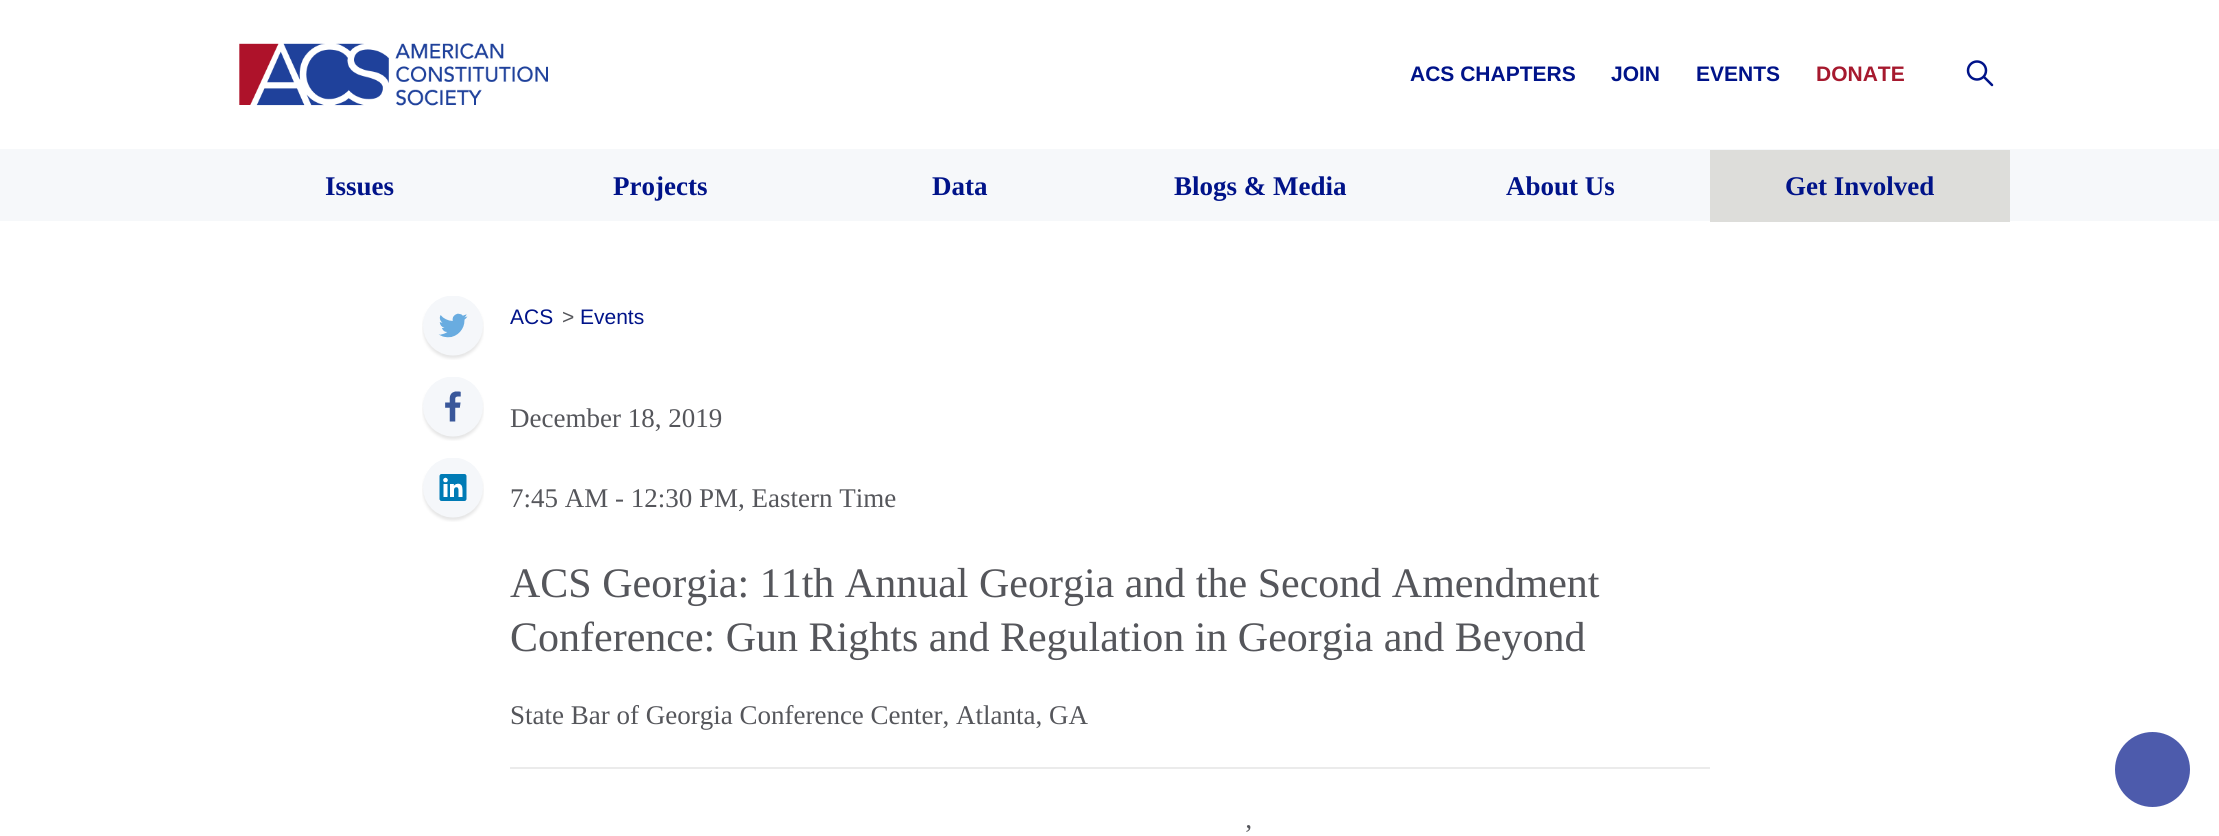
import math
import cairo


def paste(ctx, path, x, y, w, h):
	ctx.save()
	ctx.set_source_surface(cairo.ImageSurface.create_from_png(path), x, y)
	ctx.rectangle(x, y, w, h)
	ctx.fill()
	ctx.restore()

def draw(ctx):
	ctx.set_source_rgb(1, 1, 1)
	ctx.paint()
	paste(ctx, 'media/1.png', 239, 43, 309, 63)
	ctx.select_font_face('Liberation Sans', cairo.FONT_SLANT_NORMAL, cairo.FONT_WEIGHT_BOLD)
	ctx.set_font_size(21)
	ctx.set_source_rgb(0, 0.078, 0.537)
	for x, y, s in [
		(1410, 81, 'ACS CHAPTERS'),
		(1611, 81, 'JOIN'),
		(1696, 81, 'EVENTS'),
	]:
		ctx.move_to(x, y)
		ctx.show_text(s)
	ctx.set_source_rgb(0.651, 0.098, 0.18)
	ctx.move_to(1816, 81)
	ctx.show_text('DONATE')
	ctx.new_path()
	ctx.arc(1977, 70.5, 9, 0, 2 * math.pi)
	ctx.set_source_rgb(0, 0.078, 0.537)
	ctx.set_line_width(2.5)
	ctx.stroke()
	ctx.new_path()
	ctx.move_to(1984.5, 77.5)
	ctx.line_to(1992, 85)
	ctx.set_line_cap(cairo.LINE_CAP_ROUND)
	ctx.stroke()
	ctx.set_source_rgb(0.961, 0.969, 0.98)
	ctx.rectangle(0, 149, 2219, 72)
	ctx.fill()
	ctx.select_font_face('Liberation Serif', cairo.FONT_SLANT_NORMAL, cairo.FONT_WEIGHT_BOLD)
	ctx.set_font_size(27)
	ctx.set_source_rgb(0, 0.078, 0.537)
	for x, y, s in [
		(325, 195, 'Issues'),
		(613, 195, 'Projects'),
		(932, 195, 'Data'),
		(1174, 195, 'Blogs & Media'),
		(1506, 195, 'About Us'),
	]:
		ctx.move_to(x, y)
		ctx.show_text(s)
	ctx.set_source_rgb(0.867, 0.867, 0.855)
	ctx.rectangle(1710, 150, 300, 72)
	ctx.fill()
	ctx.set_source_rgb(0, 0.078, 0.537)
	ctx.move_to(1785, 195)
	ctx.show_text('Get Involved')
	paste(ctx, 'media/2.png', 422, 296, 62, 64)
	paste(ctx, 'media/3.png', 422, 377, 62, 64)
	paste(ctx, 'media/4.png', 422, 458, 62, 64)
	ctx.select_font_face('Liberation Sans')
	ctx.set_font_size(21)
	ctx.move_to(510, 324)
	ctx.show_text('ACS')
	ctx.set_source_rgb(0.333, 0.337, 0.357)
	ctx.move_to(562, 324)
	ctx.show_text('>')
	ctx.set_source_rgb(0, 0.078, 0.537)
	ctx.move_to(580, 324)
	ctx.show_text('Events')
	ctx.select_font_face('Liberation Serif')
	ctx.set_font_size(27)
	ctx.set_source_rgb(0.333, 0.337, 0.357)
	ctx.move_to(510, 427)
	ctx.show_text('December 18, 2019')
	ctx.move_to(510, 507)
	ctx.show_text('7:45 AM - 12:30 PM, Eastern Time')
	ctx.set_font_size(42)
	ctx.move_to(510, 597)
	ctx.show_text('ACS Georgia: 11th Annual Georgia and the Second Amendment')
	ctx.move_to(510, 651)
	ctx.show_text('Conference: Gun Rights and Regulation in Georgia and Beyond')
	ctx.set_font_size(27)
	ctx.move_to(510, 724)
	ctx.show_text('State Bar of Georgia Conference Center, Atlanta, GA')
	ctx.set_source_rgb(0.918, 0.918, 0.918)
	ctx.rectangle(510, 767, 1200, 2)
	ctx.fill()
	ctx.set_source_rgb(0.333, 0.337, 0.357)
	ctx.move_to(1244, 843)
	ctx.show_text('’')
	ctx.set_source_rgb(0.302, 0.357, 0.675)
	ctx.new_path()
	ctx.arc(2152.5, 769.5, 37.5, 0, 2 * math.pi)
	ctx.fill()


surface = cairo.ImageSurface(cairo.FORMAT_RGB24, 2219, 836)
ctx = cairo.Context(surface)
options = cairo.FontOptions()
options.set_hint_metrics(cairo.HINT_METRICS_OFF)
options.set_hint_style(cairo.HINT_STYLE_NONE)
ctx.set_font_options(options)
ctx.set_miter_limit(4)
draw(ctx)
surface.write_to_png('image.png')
